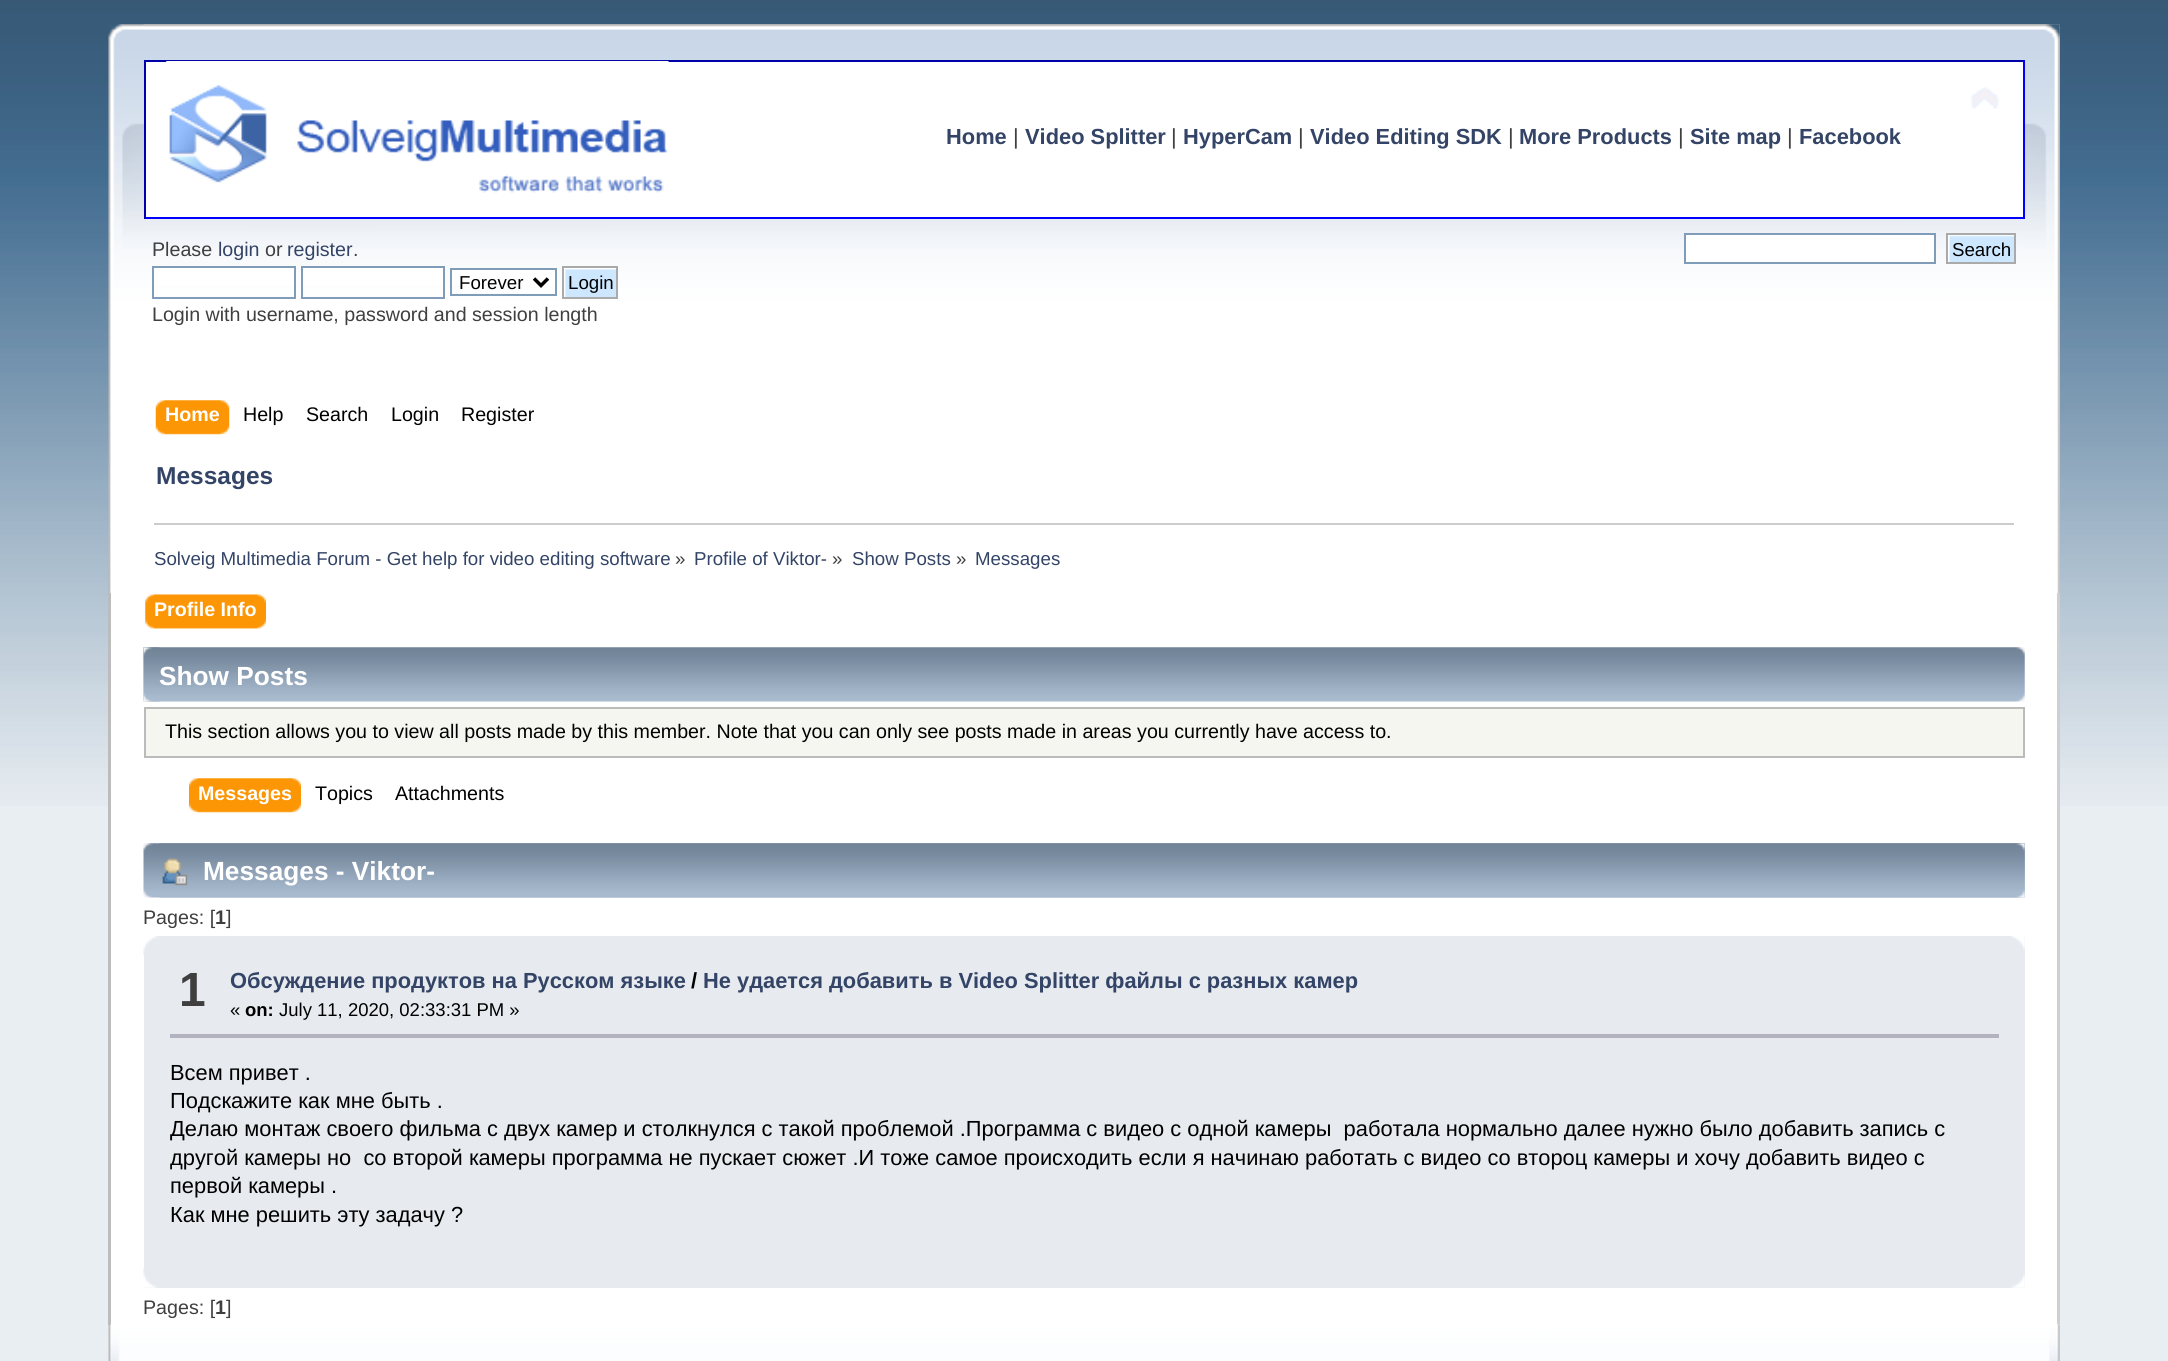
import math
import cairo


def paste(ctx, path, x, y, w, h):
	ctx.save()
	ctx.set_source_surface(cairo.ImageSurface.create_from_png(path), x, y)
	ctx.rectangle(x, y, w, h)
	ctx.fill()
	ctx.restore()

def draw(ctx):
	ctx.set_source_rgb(0.914, 0.933, 0.949)
	ctx.paint()
	paste(ctx, 'media/1.png', 0, 0, 2168, 806)
	paste(ctx, 'media/2.png', 108, 24, 1952, 569)
	paste(ctx, 'media/3.png', 143, 24, 1917, 569)
	ctx.set_source_rgb(1, 1, 1)
	ctx.rectangle(146, 62, 1877, 155)
	ctx.fill()
	ctx.set_source_rgb(0, 0, 0.667)
	ctx.rectangle(144, 60, 1881, 2)
	ctx.fill()
	ctx.set_source_rgb(0, 0, 1)
	ctx.rectangle(2023, 60, 2, 159)
	ctx.rectangle(144, 217, 1881, 2)
	ctx.fill()
	ctx.set_source_rgb(0, 0, 0.667)
	ctx.rectangle(144, 60, 2, 159)
	ctx.fill()
	paste(ctx, 'media/4.png', 166, 61, 503, 132)
	paste(ctx, 'media/5.png', 1970, 87, 29, 22)
	ctx.select_font_face('Liberation Sans', cairo.FONT_SLANT_NORMAL, cairo.FONT_WEIGHT_BOLD)
	ctx.set_font_size(21.85)
	ctx.set_source_rgb(0.2, 0.267, 0.4)
	ctx.move_to(946, 144)
	ctx.show_text('Home')
	ctx.select_font_face('Liberation Sans')
	ctx.set_source_rgb(0.247, 0.247, 0.247)
	ctx.move_to(1013, 144)
	ctx.show_text('|')
	ctx.select_font_face('Liberation Sans', cairo.FONT_SLANT_NORMAL, cairo.FONT_WEIGHT_BOLD)
	ctx.set_source_rgb(0.2, 0.267, 0.4)
	ctx.move_to(1025, 144)
	ctx.show_text('Video Splitter')
	ctx.select_font_face('Liberation Sans')
	ctx.set_source_rgb(0.247, 0.247, 0.247)
	ctx.move_to(1171, 144)
	ctx.show_text('|')
	ctx.select_font_face('Liberation Sans', cairo.FONT_SLANT_NORMAL, cairo.FONT_WEIGHT_BOLD)
	ctx.set_source_rgb(0.2, 0.267, 0.4)
	ctx.move_to(1183, 144)
	ctx.show_text('HyperCam')
	ctx.select_font_face('Liberation Sans')
	ctx.set_source_rgb(0.247, 0.247, 0.247)
	ctx.move_to(1298, 144)
	ctx.show_text('|')
	ctx.select_font_face('Liberation Sans', cairo.FONT_SLANT_NORMAL, cairo.FONT_WEIGHT_BOLD)
	ctx.set_source_rgb(0.2, 0.267, 0.4)
	ctx.move_to(1310, 144)
	ctx.show_text('Video Editing SDK')
	ctx.select_font_face('Liberation Sans')
	ctx.set_source_rgb(0.247, 0.247, 0.247)
	ctx.move_to(1508, 144)
	ctx.show_text('|')
	ctx.select_font_face('Liberation Sans', cairo.FONT_SLANT_NORMAL, cairo.FONT_WEIGHT_BOLD)
	ctx.set_source_rgb(0.2, 0.267, 0.4)
	ctx.move_to(1519, 144)
	ctx.show_text('More Products')
	ctx.select_font_face('Liberation Sans')
	ctx.set_source_rgb(0.247, 0.247, 0.247)
	ctx.move_to(1678, 144)
	ctx.show_text('|')
	ctx.select_font_face('Liberation Sans', cairo.FONT_SLANT_NORMAL, cairo.FONT_WEIGHT_BOLD)
	ctx.set_source_rgb(0.2, 0.267, 0.4)
	ctx.move_to(1690, 144)
	ctx.show_text('Site map')
	ctx.select_font_face('Liberation Sans')
	ctx.set_source_rgb(0.247, 0.247, 0.247)
	ctx.move_to(1787, 144)
	ctx.show_text('|')
	ctx.select_font_face('Liberation Sans', cairo.FONT_SLANT_NORMAL, cairo.FONT_WEIGHT_BOLD)
	ctx.set_source_rgb(0.2, 0.267, 0.4)
	ctx.move_to(1799, 144)
	ctx.show_text('Facebook')
	ctx.select_font_face('Liberation Sans')
	ctx.set_font_size(19.65)
	ctx.set_source_rgb(0.247, 0.247, 0.247)
	ctx.move_to(152, 256)
	ctx.show_text('Please')
	ctx.set_source_rgb(0.2, 0.267, 0.4)
	ctx.move_to(218, 256)
	ctx.show_text('login')
	ctx.set_source_rgb(0.247, 0.247, 0.247)
	ctx.move_to(265, 256)
	ctx.show_text('or')
	ctx.set_source_rgb(0.2, 0.267, 0.4)
	ctx.move_to(287, 256)
	ctx.show_text('register')
	ctx.set_source_rgb(0.247, 0.247, 0.247)
	ctx.move_to(353, 256)
	ctx.show_text('.')
	ctx.set_source_rgb(1, 1, 1)
	ctx.rectangle(154, 268, 140, 18)
	ctx.fill()
	ctx.rectangle(153, 267, 142, 31)
	ctx.set_source_rgb(0.498, 0.616, 0.725)
	ctx.stroke()
	ctx.set_source_rgb(1, 1, 1)
	ctx.rectangle(303, 268, 140, 18)
	ctx.fill()
	ctx.rectangle(302, 267, 142, 31)
	ctx.set_source_rgb(0.498, 0.616, 0.725)
	ctx.stroke()
	ctx.set_source_rgb(1, 1, 1)
	ctx.rectangle(452, 270, 103, 16)
	ctx.fill()
	ctx.rectangle(451, 269, 105, 26)
	ctx.set_source_rgb(0.498, 0.616, 0.725)
	ctx.stroke()
	ctx.new_path()
	ctx.move_to(534, 278.5)
	ctx.line_to(541, 285.5)
	ctx.line_to(548, 278.5)
	ctx.set_source_rgb(0, 0, 0)
	ctx.set_line_width(3.5)
	ctx.stroke()
	ctx.set_font_size(18.7)
	ctx.move_to(459, 289)
	ctx.show_text('Forever')
	paste(ctx, 'media/6.png', 564, 268, 52, 29)
	ctx.rectangle(563, 267, 54, 31)
	ctx.set_source_rgb(0.667, 0.667, 0.667)
	ctx.set_line_width(2)
	ctx.stroke()
	ctx.set_source_rgb(0, 0, 0)
	ctx.move_to(568, 289)
	ctx.show_text('Login')
	ctx.set_font_size(19.65)
	ctx.set_source_rgb(0.247, 0.247, 0.247)
	ctx.move_to(152, 321)
	ctx.show_text('Login with username, password and session length')
	ctx.set_source_rgb(1, 1, 1)
	ctx.rectangle(1685, 234, 250, 29)
	ctx.fill_preserve()
	ctx.set_source_rgb(0.498, 0.616, 0.725)
	ctx.stroke()
	paste(ctx, 'media/7.png', 1948, 235, 66, 27)
	ctx.rectangle(1947, 234, 68, 29)
	ctx.set_source_rgb(0.667, 0.667, 0.667)
	ctx.stroke()
	ctx.set_font_size(18.7)
	ctx.set_source_rgb(0, 0, 0)
	ctx.move_to(1952, 256)
	ctx.show_text('Search')
	paste(ctx, 'media/8.png', 164, 400, 66, 35)
	paste(ctx, 'media/9.png', 155, 400, 66, 35)
	ctx.select_font_face('Liberation Sans', cairo.FONT_SLANT_NORMAL, cairo.FONT_WEIGHT_BOLD)
	ctx.set_font_size(19.65)
	ctx.set_source_rgb(1, 1, 1)
	ctx.move_to(165, 421)
	ctx.show_text('Home')
	ctx.select_font_face('Liberation Sans')
	ctx.set_source_rgb(0, 0, 0)
	for x, y, s in [
		(243, 421, 'Help'),
		(306, 421, 'Search'),
		(391, 421, 'Login'),
		(461, 421, 'Register'),
	]:
		ctx.move_to(x, y)
		ctx.show_text(s)
	ctx.select_font_face('Liberation Sans', cairo.FONT_SLANT_NORMAL, cairo.FONT_WEIGHT_BOLD)
	ctx.set_font_size(24.5)
	ctx.set_source_rgb(0.2, 0.267, 0.4)
	ctx.move_to(156, 484)
	ctx.show_text('Messages')
	ctx.set_source_rgb(0.8, 0.8, 0.8)
	ctx.rectangle(154, 523, 1860, 2)
	ctx.fill()
	ctx.select_font_face('Liberation Sans')
	ctx.set_font_size(18.7)
	ctx.set_source_rgb(0.2, 0.267, 0.4)
	ctx.move_to(154, 565)
	ctx.show_text('Solveig Multimedia Forum - Get help for video editing software')
	ctx.set_source_rgb(0.247, 0.247, 0.247)
	ctx.move_to(675, 565)
	ctx.show_text('»')
	ctx.set_source_rgb(0.2, 0.267, 0.4)
	ctx.move_to(694, 565)
	ctx.show_text('Profile of Viktor-')
	ctx.set_source_rgb(0.247, 0.247, 0.247)
	ctx.move_to(832, 565)
	ctx.show_text('»')
	ctx.set_source_rgb(0.2, 0.267, 0.4)
	ctx.move_to(852, 565)
	ctx.show_text('Show Posts')
	ctx.set_source_rgb(0.247, 0.247, 0.247)
	ctx.move_to(956, 565)
	ctx.show_text('»')
	ctx.set_source_rgb(0.2, 0.267, 0.4)
	ctx.move_to(975, 565)
	ctx.show_text('Messages')
	ctx.set_source_rgb(1, 1, 1)
	ctx.rectangle(111, 593, 1946, 732)
	ctx.fill()
	ctx.set_source_rgb(0.737, 0.737, 0.737)
	ctx.rectangle(108, 593, 3, 732)
	ctx.fill()
	ctx.set_source_rgb(0.812, 0.812, 0.812)
	ctx.rectangle(2057, 593, 3, 732)
	ctx.fill()
	paste(ctx, 'media/10.png', 154, 594, 112, 35)
	paste(ctx, 'media/11.png', 145, 594, 113, 35)
	ctx.select_font_face('Liberation Sans', cairo.FONT_SLANT_NORMAL, cairo.FONT_WEIGHT_BOLD)
	ctx.set_font_size(19.65)
	ctx.set_source_rgb(1, 1, 1)
	ctx.move_to(154, 616)
	ctx.show_text('Profile Info')
	paste(ctx, 'media/12.png', 143, 647, 1882, 55)
	paste(ctx, 'media/13.png', 143, 647, 17, 55)
	ctx.set_font_size(26.25)
	ctx.move_to(159, 685)
	ctx.show_text('Show Posts')
	ctx.set_source_rgb(0.961, 0.961, 0.941)
	ctx.rectangle(145, 708, 1879, 49)
	ctx.fill_preserve()
	ctx.set_source_rgb(0.733, 0.733, 0.733)
	ctx.stroke()
	ctx.select_font_face('Liberation Sans')
	ctx.set_font_size(19.65)
	ctx.set_source_rgb(0, 0, 0)
	ctx.move_to(165, 738)
	ctx.show_text('This section allows you to view all posts made by this member. Note that you can only see posts made in areas you currently have access to.')
	paste(ctx, 'media/14.png', 197, 778, 104, 35)
	paste(ctx, 'media/15.png', 189, 778, 104, 35)
	ctx.select_font_face('Liberation Sans', cairo.FONT_SLANT_NORMAL, cairo.FONT_WEIGHT_BOLD)
	ctx.set_source_rgb(1, 1, 1)
	ctx.move_to(198, 800)
	ctx.show_text('Messages')
	ctx.select_font_face('Liberation Sans')
	ctx.set_source_rgb(0, 0, 0)
	ctx.move_to(315, 800)
	ctx.show_text('Topics')
	ctx.move_to(395, 800)
	ctx.show_text('Attachments')
	paste(ctx, 'media/16.png', 143, 843, 1882, 55)
	paste(ctx, 'media/17.png', 159, 843, 1866, 55)
	paste(ctx, 'media/18.png', 162, 858, 26, 28)
	ctx.select_font_face('Liberation Sans', cairo.FONT_SLANT_NORMAL, cairo.FONT_WEIGHT_BOLD)
	ctx.set_font_size(26.25)
	ctx.set_source_rgb(1, 1, 1)
	ctx.move_to(203, 880)
	ctx.show_text('Messages - Viktor-')
	ctx.select_font_face('Liberation Sans')
	ctx.set_font_size(19.65)
	ctx.set_source_rgb(0.247, 0.247, 0.247)
	ctx.move_to(143, 924)
	ctx.show_text('Pages: [')
	ctx.select_font_face('Liberation Sans', cairo.FONT_SLANT_NORMAL, cairo.FONT_WEIGHT_BOLD)
	ctx.move_to(215, 924)
	ctx.show_text('1')
	ctx.select_font_face('Liberation Sans')
	ctx.move_to(226, 924)
	ctx.show_text(']')
	ctx.set_source_rgb(0.906, 0.918, 0.937)
	ctx.rectangle(144, 936, 1881, 352)
	ctx.fill()
	paste(ctx, 'media/19.png', 143, 936, 15, 19)
	paste(ctx, 'media/20.png', 2010, 936, 15, 14)
	ctx.select_font_face('Liberation Sans', cairo.FONT_SLANT_NORMAL, cairo.FONT_WEIGHT_BOLD)
	ctx.set_font_size(48)
	ctx.set_source_rgb(0.247, 0.247, 0.247)
	ctx.move_to(179, 1006)
	ctx.show_text('1')
	ctx.set_font_size(21.85)
	ctx.set_source_rgb(0.2, 0.267, 0.4)
	ctx.move_to(230, 988)
	ctx.show_text('Обсуждение продуктов на Русском языке')
	ctx.set_source_rgb(0, 0, 0)
	ctx.move_to(691, 988)
	ctx.show_text('/')
	ctx.set_source_rgb(0.2, 0.267, 0.4)
	ctx.move_to(703, 988)
	ctx.show_text('Не удается добавить в Video Splitter файлы с разных камер')
	ctx.select_font_face('Liberation Sans')
	ctx.set_font_size(18.5)
	ctx.set_source_rgb(0, 0, 0)
	ctx.move_to(230, 1016)
	ctx.show_text('«')
	ctx.select_font_face('Liberation Sans', cairo.FONT_SLANT_NORMAL, cairo.FONT_WEIGHT_BOLD)
	ctx.move_to(245, 1016)
	ctx.show_text('on:')
	ctx.select_font_face('Liberation Sans')
	ctx.move_to(279, 1016)
	ctx.show_text('July 11, 2020, 02:33:31 PM »')
	ctx.set_source_rgb(0.702, 0.702, 0.749)
	ctx.rectangle(170, 1034, 1829, 4)
	ctx.fill()
	ctx.set_font_size(21.85)
	ctx.set_source_rgb(0, 0, 0)
	for x, y, s in [
		(170, 1080, 'Всем привет .'),
		(170, 1108, 'Подскажите как мне быть .'),
		(170, 1136, 'Делаю монтаж своего фильма с двух камер и столкнулся с такой проблемой .Программа с видео с одной камеры  работала нормально далее нужно было добавить запись с'),
		(170, 1165, 'другой камеры но  со второй камеры программа не пускает сюжет .И тоже самое происходить если я начинаю работать с видео со второц камеры и хочу добавить видео с'),
		(170, 1193, 'первой камеры .'),
		(170, 1222, 'Как мне решить эту задачу ?'),
	]:
		ctx.move_to(x, y)
		ctx.show_text(s)
	paste(ctx, 'media/21.png', 143, 1268, 14, 20)
	paste(ctx, 'media/22.png', 2011, 1274, 14, 14)
	ctx.set_font_size(19.65)
	ctx.set_source_rgb(0.247, 0.247, 0.247)
	ctx.move_to(143, 1314)
	ctx.show_text('Pages: [')
	ctx.select_font_face('Liberation Sans', cairo.FONT_SLANT_NORMAL, cairo.FONT_WEIGHT_BOLD)
	ctx.move_to(215, 1314)
	ctx.show_text('1')
	ctx.select_font_face('Liberation Sans')
	ctx.move_to(226, 1314)
	ctx.show_text(']')
	paste(ctx, 'media/23.png', 108, 1324, 1952, 37)
	paste(ctx, 'media/24.png', 2049, 1324, 11, 37)


surface = cairo.ImageSurface(cairo.FORMAT_RGB24, 2168, 1361)
ctx = cairo.Context(surface)
options = cairo.FontOptions()
options.set_hint_metrics(cairo.HINT_METRICS_OFF)
options.set_hint_style(cairo.HINT_STYLE_NONE)
ctx.set_font_options(options)
ctx.set_miter_limit(4)
draw(ctx)
surface.write_to_png('image.png')
